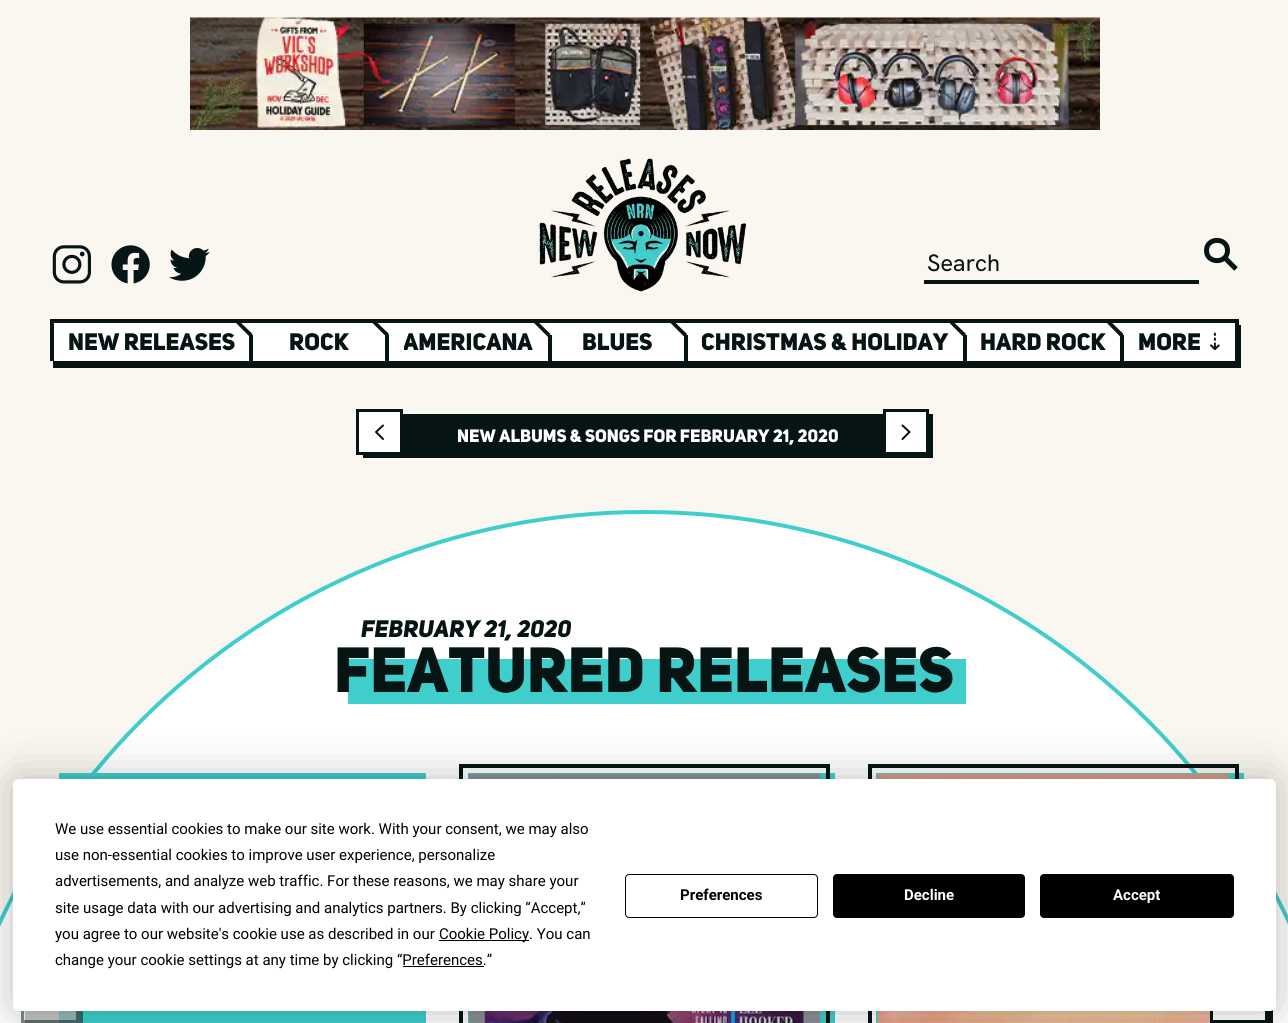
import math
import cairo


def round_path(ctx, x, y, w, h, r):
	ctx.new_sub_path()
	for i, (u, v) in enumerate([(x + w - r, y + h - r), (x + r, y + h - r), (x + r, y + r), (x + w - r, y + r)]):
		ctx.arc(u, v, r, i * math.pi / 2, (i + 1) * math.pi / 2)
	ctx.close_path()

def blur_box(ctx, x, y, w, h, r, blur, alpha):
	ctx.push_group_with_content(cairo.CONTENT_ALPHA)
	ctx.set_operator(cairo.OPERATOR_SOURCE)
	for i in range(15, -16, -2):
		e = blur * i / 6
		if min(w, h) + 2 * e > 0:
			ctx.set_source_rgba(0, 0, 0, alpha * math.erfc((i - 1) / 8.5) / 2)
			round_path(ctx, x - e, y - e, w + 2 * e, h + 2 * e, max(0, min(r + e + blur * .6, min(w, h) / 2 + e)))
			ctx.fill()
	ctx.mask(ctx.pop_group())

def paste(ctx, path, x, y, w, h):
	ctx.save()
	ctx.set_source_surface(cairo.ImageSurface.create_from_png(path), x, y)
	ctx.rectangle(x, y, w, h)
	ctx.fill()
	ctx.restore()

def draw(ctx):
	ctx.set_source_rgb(0.973, 0.965, 0.937)
	ctx.paint()
	paste(ctx, 'media/1.png', 190, 17, 910, 113)
	paste(ctx, 'media/2.png', 52, 245, 39, 39)
	paste(ctx, 'media/3.png', 111, 245, 39, 39)
	paste(ctx, 'media/4.png', 169, 248, 41, 33)
	paste(ctx, 'media/5.png', 538, 158, 209, 134)
	ctx.set_source_rgb(0.024, 0.082, 0.082)
	ctx.rectangle(924, 280, 275, 4)
	ctx.fill()
	ctx.select_font_face('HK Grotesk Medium')
	ctx.set_font_size(23.6)
	ctx.move_to(927, 271)
	ctx.show_text('Search')
	ctx.new_path()
	ctx.move_to(1224.5, 257.5)
	ctx.line_to(1236, 269)
	ctx.move_to(1206.5, 250.5)
	ctx.curve_to(1206.5, 237, 1227.5, 237, 1227.5, 250.5)
	ctx.curve_to(1227.5, 264, 1206.5, 264, 1206.5, 250.5)
	ctx.close_path()
	ctx.set_line_width(5)
	ctx.stroke()
	ctx.rectangle(53, 325, 1188, 43)
	ctx.fill()
	ctx.set_source_rgb(1, 1, 1)
	ctx.rectangle(54, 323, 195, 38)
	ctx.fill()
	ctx.set_source_rgb(0.024, 0.082, 0.082)
	ctx.rectangle(50, 319, 1189, 4)
	ctx.rectangle(50, 319, 4, 42)
	ctx.rectangle(249, 319, 4, 6)
	ctx.fill()
	ctx.set_source_rgb(1, 1, 1)
	ctx.rectangle(249, 323, 4, 12)
	ctx.fill()
	ctx.set_source_rgb(0.024, 0.082, 0.082)
	ctx.new_path()
	ctx.move_to(235, 322)
	ctx.line_to(237.5, 319.5)
	ctx.line_to(252.5, 334)
	ctx.line_to(250, 337)
	ctx.close_path()
	ctx.fill()
	ctx.select_font_face('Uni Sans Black')
	ctx.move_to(68, 350)
	ctx.show_text('New Releases')
	ctx.set_source_rgb(1, 1, 1)
	ctx.rectangle(253, 323, 132, 38)
	ctx.fill()
	ctx.set_source_rgb(0.024, 0.082, 0.082)
	ctx.rectangle(385, 319, 4, 6)
	ctx.fill()
	ctx.set_source_rgb(1, 1, 1)
	ctx.rectangle(385, 323, 4, 12)
	ctx.fill()
	ctx.set_source_rgb(0.024, 0.082, 0.082)
	ctx.new_path()
	ctx.move_to(371.5, 322)
	ctx.line_to(374, 319.5)
	ctx.line_to(389, 334)
	ctx.line_to(386.5, 337)
	ctx.close_path()
	ctx.fill()
	ctx.move_to(289, 350)
	ctx.show_text('Rock')
	ctx.set_source_rgb(1, 1, 1)
	ctx.rectangle(389, 323, 159, 38)
	ctx.fill()
	ctx.set_source_rgb(0.024, 0.082, 0.082)
	ctx.rectangle(548, 319, 4, 6)
	ctx.fill()
	ctx.set_source_rgb(1, 1, 1)
	ctx.rectangle(548, 323, 4, 12)
	ctx.fill()
	ctx.set_source_rgb(0.024, 0.082, 0.082)
	ctx.new_path()
	ctx.move_to(533, 322)
	ctx.line_to(535.5, 319.5)
	ctx.line_to(550.5, 334)
	ctx.line_to(548, 337)
	ctx.close_path()
	ctx.fill()
	ctx.save()
	ctx.rectangle(404, 324, 129, 36)
	ctx.clip()
	ctx.move_to(403, 350)
	ctx.show_text('Americana')
	ctx.restore()
	ctx.set_source_rgb(1, 1, 1)
	ctx.rectangle(552, 323, 132, 38)
	ctx.fill()
	ctx.set_source_rgb(0.024, 0.082, 0.082)
	ctx.rectangle(684, 319, 4, 6)
	ctx.fill()
	ctx.set_source_rgb(1, 1, 1)
	ctx.rectangle(684, 323, 4, 12)
	ctx.fill()
	ctx.set_source_rgb(0.024, 0.082, 0.082)
	ctx.new_path()
	ctx.move_to(669.5, 322)
	ctx.line_to(672, 319.5)
	ctx.line_to(687, 334)
	ctx.line_to(684.5, 337)
	ctx.close_path()
	ctx.fill()
	ctx.move_to(582, 350)
	ctx.show_text('Blues')
	ctx.set_source_rgb(1, 1, 1)
	ctx.rectangle(688, 323, 275, 38)
	ctx.fill()
	ctx.set_source_rgb(0.024, 0.082, 0.082)
	ctx.rectangle(963, 319, 4, 6)
	ctx.fill()
	ctx.set_source_rgb(1, 1, 1)
	ctx.rectangle(963, 323, 4, 12)
	ctx.fill()
	ctx.set_source_rgb(0.024, 0.082, 0.082)
	ctx.new_path()
	ctx.move_to(948.5, 322)
	ctx.line_to(951, 319.5)
	ctx.line_to(966, 334)
	ctx.line_to(963.5, 337)
	ctx.close_path()
	ctx.fill()
	ctx.move_to(701, 350)
	ctx.show_text('Christmas & Holiday')
	ctx.set_source_rgb(1, 1, 1)
	ctx.rectangle(967, 323, 153, 38)
	ctx.fill()
	ctx.set_source_rgb(0.024, 0.082, 0.082)
	ctx.rectangle(1120, 319, 4, 6)
	ctx.fill()
	ctx.set_source_rgb(1, 1, 1)
	ctx.rectangle(1120, 323, 4, 12)
	ctx.fill()
	ctx.set_source_rgb(0.024, 0.082, 0.082)
	ctx.new_path()
	ctx.move_to(1106, 322)
	ctx.line_to(1108.5, 319.5)
	ctx.line_to(1123.5, 334)
	ctx.line_to(1120.5, 337)
	ctx.close_path()
	ctx.fill()
	ctx.move_to(980, 350)
	ctx.show_text('Hard Rock')
	ctx.set_source_rgb(1, 1, 1)
	ctx.rectangle(1124, 323, 111, 38)
	ctx.fill()
	ctx.set_source_rgb(0.024, 0.082, 0.082)
	ctx.rectangle(1235, 319, 4, 6)
	ctx.fill()
	ctx.move_to(1138, 350)
	ctx.show_text('More')
	ctx.select_font_face('DejaVu Sans')
	ctx.move_to(1205, 350)
	ctx.show_text('⇣')
	ctx.rectangle(363, 414, 570, 44)
	ctx.fill()
	ctx.set_source_rgb(1, 1, 1)
	ctx.rectangle(357.5, 410.5, 44, 43)
	ctx.fill_preserve()
	ctx.set_source_rgb(0.024, 0.082, 0.082)
	ctx.set_line_width(3)
	ctx.stroke()
	ctx.new_path()
	ctx.move_to(383, 439)
	ctx.line_to(376, 432)
	ctx.line_to(383, 425.5)
	ctx.set_line_width(2)
	ctx.set_line_cap(cairo.LINE_CAP_ROUND)
	ctx.set_line_join(cairo.LINE_JOIN_ROUND)
	ctx.stroke()
	ctx.select_font_face('Uni Sans Black')
	ctx.set_font_size(17.75)
	ctx.set_source_rgb(1, 1, 1)
	ctx.move_to(457, 442)
	ctx.show_text('New Albums & Songs for February 21, 2020')
	ctx.rectangle(884.5, 410.5, 43, 43)
	ctx.fill_preserve()
	ctx.set_source_rgb(0.024, 0.082, 0.082)
	ctx.set_line_width(3)
	ctx.set_line_cap(cairo.LINE_CAP_BUTT)
	ctx.set_line_join(cairo.LINE_JOIN_MITER)
	ctx.stroke()
	ctx.new_path()
	ctx.move_to(902.5, 425.5)
	ctx.line_to(909.5, 432)
	ctx.line_to(902.5, 439)
	ctx.set_line_width(2)
	ctx.set_line_cap(cairo.LINE_CAP_ROUND)
	ctx.set_line_join(cairo.LINE_JOIN_ROUND)
	ctx.stroke()
	ctx.set_source_rgb(1, 1, 1)
	round_path(ctx, -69, 510, 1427, 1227, 713.5)
	ctx.fill()
	ctx.set_source_rgb(0.757, 0.773, 0.773)
	ctx.rectangle(25, 1011, 34, 12)
	ctx.fill()
	round_path(ctx, -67, 512, 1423, 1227, 711.5)
	ctx.set_source_rgb(0.247, 0.808, 0.8)
	ctx.set_line_width(4)
	ctx.set_line_cap(cairo.LINE_CAP_BUTT)
	ctx.set_line_join(cairo.LINE_JOIN_MITER)
	ctx.stroke()
	ctx.select_font_face('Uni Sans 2 Black')
	ctx.set_font_size(23.6)
	ctx.set_source_rgb(0.024, 0.082, 0.082)
	ctx.move_to(361, 637)
	ctx.show_text('February 21, 2020')
	ctx.set_source_rgb(0.247, 0.808, 0.8)
	ctx.rectangle(348, 659, 618, 45)
	ctx.fill()
	ctx.select_font_face('Uni Sans Black')
	ctx.set_font_size(63)
	ctx.set_source_rgb(0.024, 0.082, 0.082)
	ctx.move_to(334, 692)
	ctx.show_text('Featured Releases')
	ctx.set_source_rgb(0.247, 0.808, 0.8)
	ctx.rectangle(59, 773, 367, 250)
	ctx.fill()
	ctx.set_source_rgb(0.569, 0.725, 0.722)
	ctx.rectangle(59, 1011, 20, 12)
	ctx.fill()
	ctx.rectangle(22.5, 954.5, 55, 67)
	ctx.set_source_rgba(0.024, 0.082, 0.082, 0.5)
	ctx.set_line_width(3)
	ctx.stroke()
	ctx.set_source_rgb(0.137, 0.447, 0.443)
	ctx.rectangle(79, 1011, 4, 12)
	ctx.fill()
	ctx.set_source_rgb(0.247, 0.808, 0.8)
	ctx.rectangle(468, 773, 367, 250)
	ctx.fill()
	ctx.rectangle(461, 766, 367, 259)
	ctx.set_source_rgb(0.024, 0.082, 0.082)
	ctx.set_line_width(4)
	ctx.stroke()
	paste(ctx, 'media/6.png', 468, 773, 353, 250)
	ctx.set_source_rgb(0.247, 0.808, 0.8)
	ctx.rectangle(876, 773, 368, 250)
	ctx.fill()
	ctx.rectangle(870, 766, 367, 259)
	ctx.set_source_rgb(0.024, 0.082, 0.082)
	ctx.stroke()
	paste(ctx, 'media/7.png', 876, 773, 353, 250)
	ctx.set_source_rgb(1, 1, 1)
	ctx.rectangle(1213, 1011, 31, 9)
	ctx.fill()
	ctx.rectangle(1211.5, 954.5, 55, 67)
	ctx.set_source_rgb(0.024, 0.082, 0.082)
	ctx.set_line_width(3)
	ctx.stroke()
	ctx.rectangle(1268, 1010, 5, 13)
	ctx.fill()
	ctx.set_source_rgb(0, 0, 0)
	blur_box(ctx, 13, 779, 1263, 232, 6, 22, 0.25)
	ctx.set_source_rgb(1, 1, 1)
	round_path(ctx, 13, 779, 1263, 232, 6)
	ctx.fill()
	ctx.select_font_face('Roboto')
	ctx.set_font_size(15)
	ctx.set_source_rgb(0, 0, 0)
	for x, y, s in [
		(55, 834, 'We use essential cookies to make our site work. With your consent, we may also'),
		(55, 860, 'use non-essential cookies to improve user experience, personalize'),
		(55, 886, 'advertisements, and analyze web traffic. For these reasons, we may share your'),
		(55, 913, 'site usage data with our advertising and analytics partners. By clicking “Accept,”'),
		(55, 939, 'you agree to our website\'s cookie use as described in our'),
	]:
		ctx.move_to(x, y)
		ctx.show_text(s)
	ctx.rectangle(439, 940, 90, 1)
	ctx.fill()
	ctx.move_to(439, 939)
	ctx.show_text('Cookie Policy. You can')
	ctx.move_to(55, 965)
	ctx.show_text('change your cookie settings at any time by clicking “Preferences.”')
	ctx.rectangle(403, 966, 81, 1)
	ctx.fill()
	round_path(ctx, 625.5, 874.5, 192, 43, 3.5)
	ctx.set_line_width(1)
	ctx.stroke()
	ctx.select_font_face('Roboto', cairo.FONT_SLANT_NORMAL, cairo.FONT_WEIGHT_BOLD)
	ctx.move_to(680, 900)
	ctx.show_text('Preferences')
	round_path(ctx, 833.5, 874.5, 191, 43, 3.5)
	ctx.fill_preserve()
	ctx.stroke()
	ctx.set_source_rgb(1, 1, 1)
	ctx.move_to(904, 900)
	ctx.show_text('Decline')
	ctx.set_source_rgb(0, 0, 0)
	round_path(ctx, 1040.5, 874.5, 193, 43, 3.5)
	ctx.fill_preserve()
	ctx.stroke()
	ctx.set_source_rgb(1, 1, 1)
	ctx.move_to(1113, 900)
	ctx.show_text('Accept')


surface = cairo.ImageSurface(cairo.FORMAT_RGB24, 1288, 1023)
ctx = cairo.Context(surface)
options = cairo.FontOptions()
options.set_hint_metrics(cairo.HINT_METRICS_OFF)
options.set_hint_style(cairo.HINT_STYLE_NONE)
ctx.set_font_options(options)
ctx.set_miter_limit(4)
draw(ctx)
surface.write_to_png('image.png')
